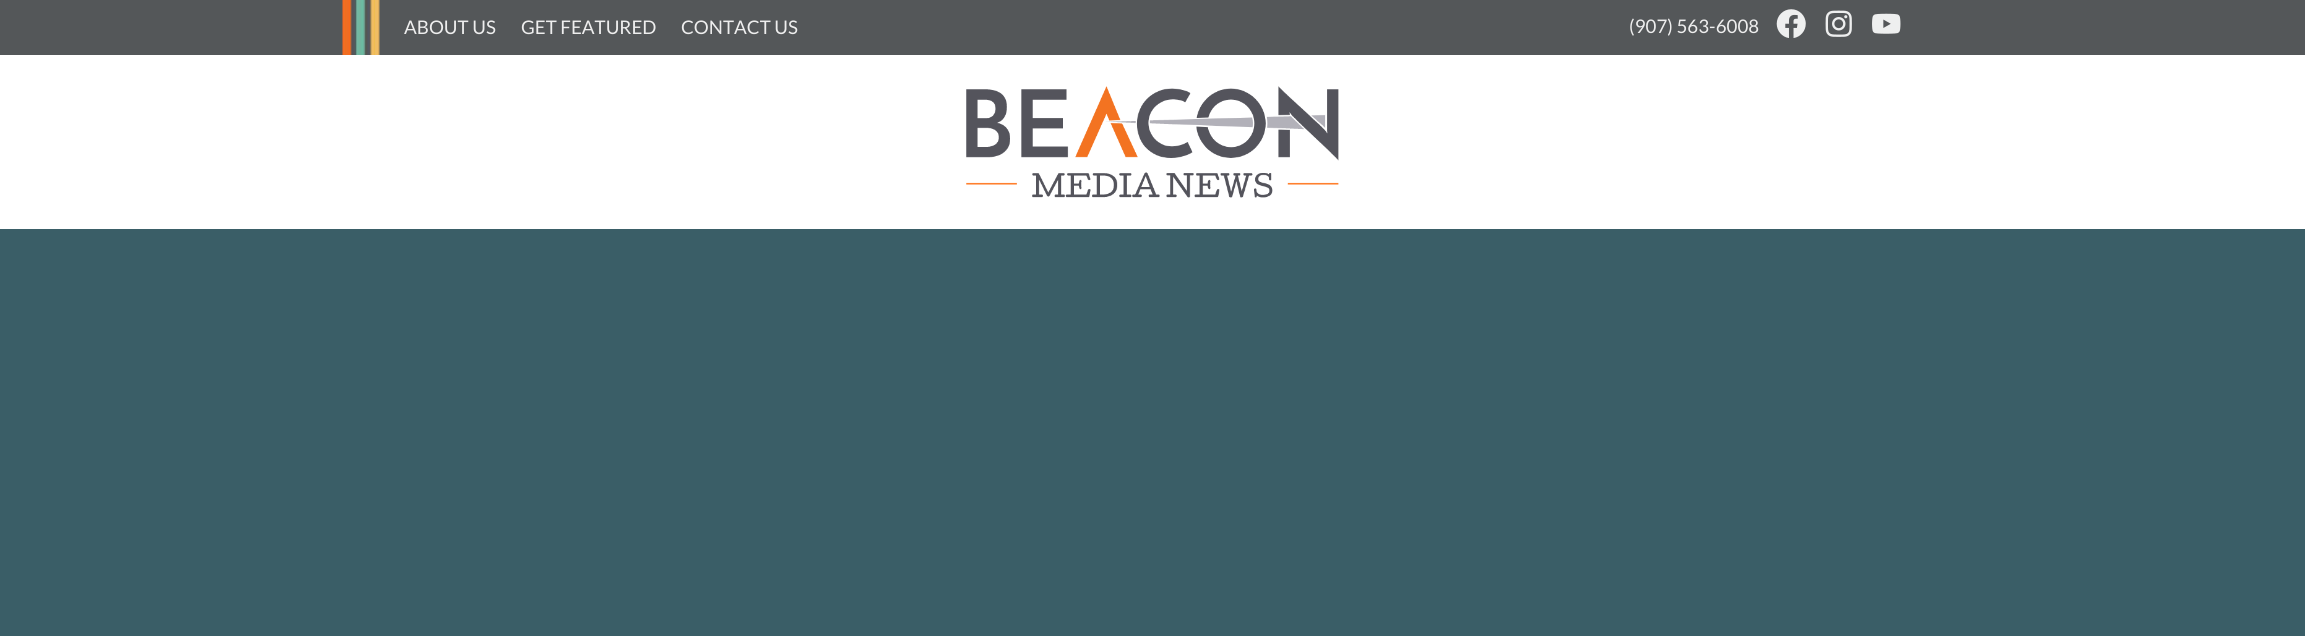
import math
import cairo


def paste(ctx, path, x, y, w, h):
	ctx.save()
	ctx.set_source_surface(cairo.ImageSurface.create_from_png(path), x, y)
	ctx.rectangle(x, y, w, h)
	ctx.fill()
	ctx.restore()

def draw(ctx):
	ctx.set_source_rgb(1, 1, 1)
	ctx.paint()
	ctx.set_source_rgb(0.329, 0.341, 0.349)
	ctx.rectangle(0, 0, 2305, 55)
	ctx.fill()
	paste(ctx, 'media/1.png', 342, 0, 38, 55)
	ctx.select_font_face('Lato')
	ctx.set_font_size(18.75)
	ctx.set_source_rgb(0.933, 0.933, 0.933)
	for x, y, s in [
		(404, 34, 'ABOUT US'),
		(521, 34, 'GET FEATURED'),
		(681, 34, 'CONTACT US'),
		(1629, 33, '(907) 563-6008'),
	]:
		ctx.move_to(x, y)
		ctx.show_text(s)
	paste(ctx, 'media/2.png', 1776, 9, 30, 29)
	paste(ctx, 'media/3.png', 1825, 10, 27, 27)
	paste(ctx, 'media/4.png', 1872, 13, 29, 21)
	paste(ctx, 'media/5.png', 966, 86, 373, 112)
	ctx.set_source_rgb(0.227, 0.369, 0.404)
	ctx.rectangle(0, 229, 2305, 407)
	ctx.fill()


surface = cairo.ImageSurface(cairo.FORMAT_RGB24, 2305, 636)
ctx = cairo.Context(surface)
options = cairo.FontOptions()
options.set_hint_metrics(cairo.HINT_METRICS_OFF)
options.set_hint_style(cairo.HINT_STYLE_NONE)
ctx.set_font_options(options)
ctx.set_miter_limit(4)
draw(ctx)
surface.write_to_png('image.png')
